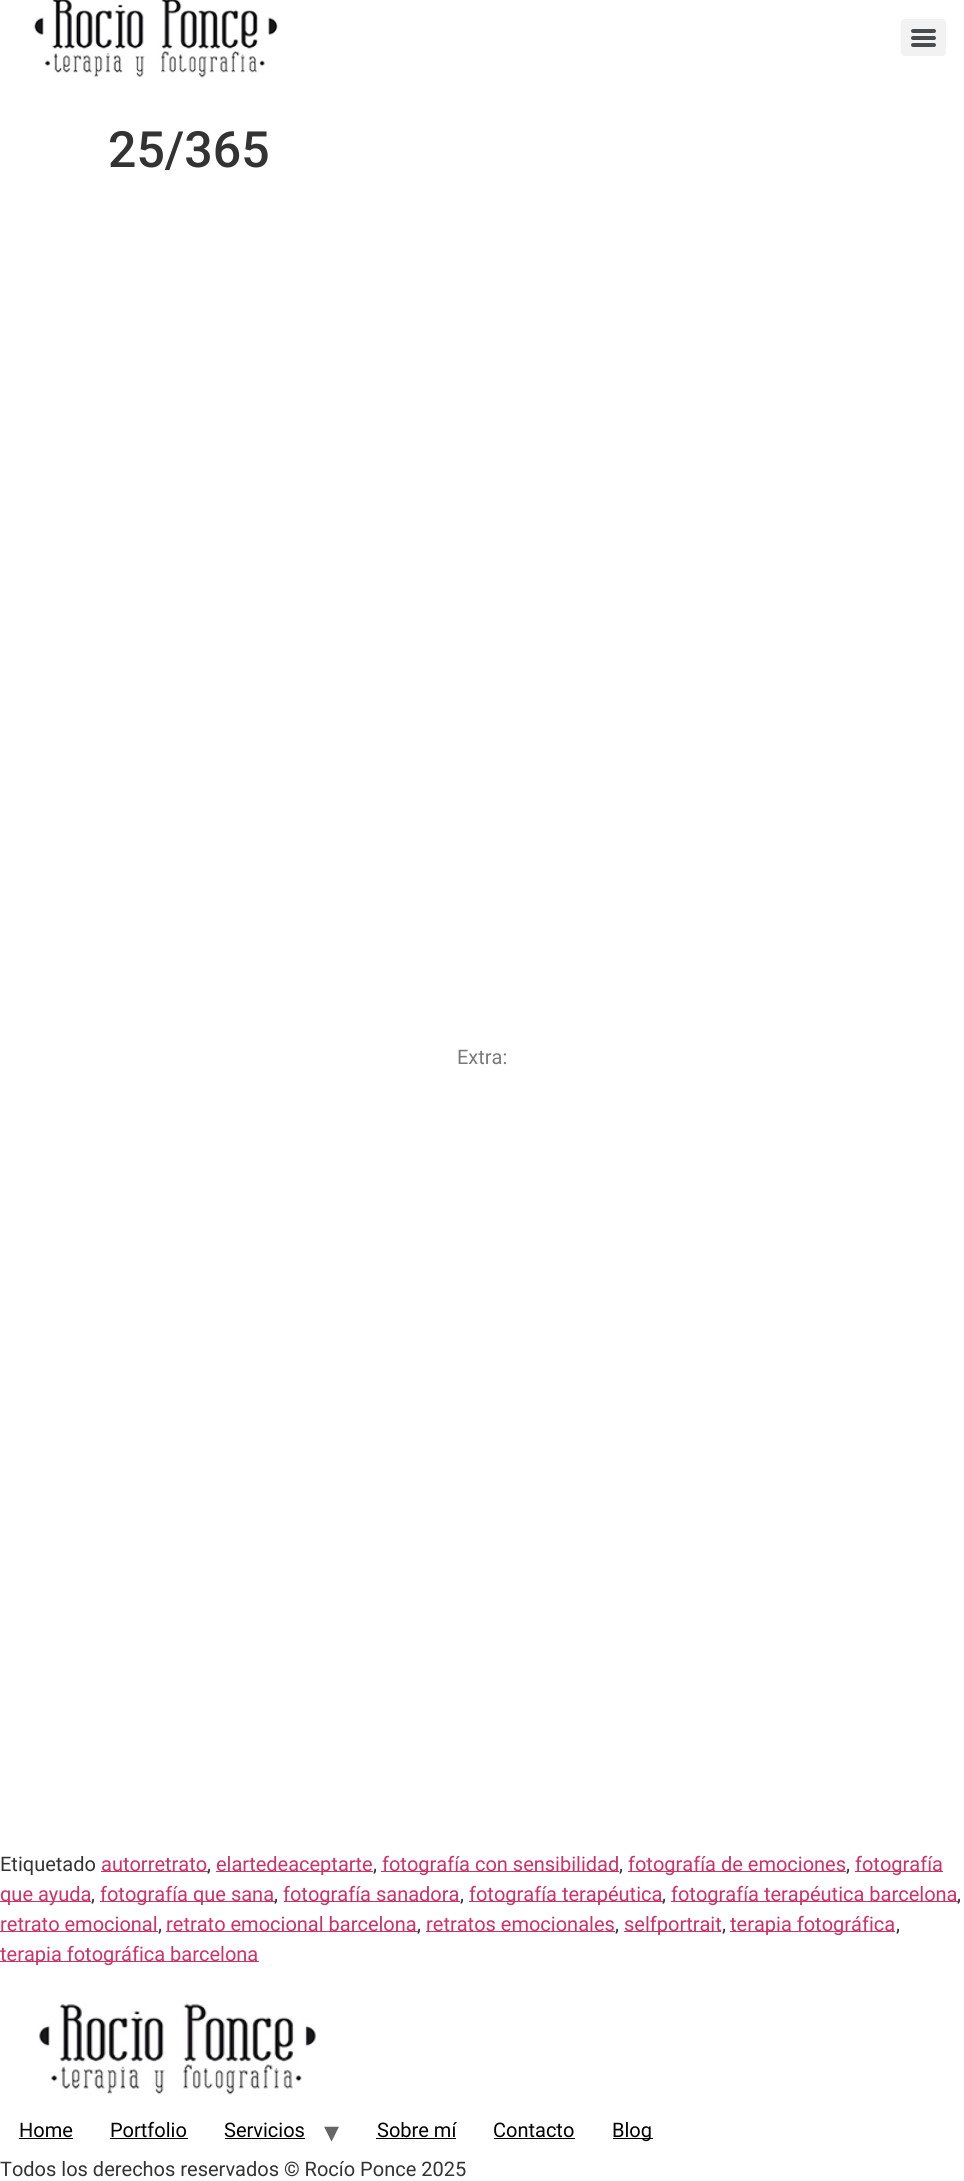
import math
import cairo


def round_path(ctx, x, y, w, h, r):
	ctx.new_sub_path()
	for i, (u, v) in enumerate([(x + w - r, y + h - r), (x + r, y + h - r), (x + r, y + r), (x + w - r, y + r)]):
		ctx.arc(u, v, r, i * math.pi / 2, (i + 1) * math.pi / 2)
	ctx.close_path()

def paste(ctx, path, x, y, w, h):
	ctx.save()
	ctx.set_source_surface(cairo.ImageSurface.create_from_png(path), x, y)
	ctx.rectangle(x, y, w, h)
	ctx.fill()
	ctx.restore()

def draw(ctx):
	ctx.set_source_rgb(1, 1, 1)
	ctx.paint()
	paste(ctx, 'media/1.png', 33, 0, 245, 78)
	ctx.set_source_rgb(0.949, 0.949, 0.949)
	round_path(ctx, 901, 19, 45, 37, 4)
	ctx.fill()
	ctx.set_source_rgb(0.286, 0.298, 0.31)
	round_path(ctx, 911, 36, 25, 4, 2)
	ctx.fill()
	round_path(ctx, 911, 29, 25, 4, 2)
	ctx.fill()
	round_path(ctx, 911, 43, 25, 4, 2)
	ctx.fill()
	ctx.select_font_face('Roboto Medium')
	ctx.set_font_size(50)
	ctx.set_source_rgb(0.2, 0.2, 0.2)
	ctx.move_to(108, 167)
	ctx.show_text('25/365')
	ctx.select_font_face('Roboto')
	ctx.set_font_size(20)
	ctx.set_source_rgb(0.478, 0.478, 0.478)
	ctx.move_to(457, 1064)
	ctx.show_text('Extra:')
	ctx.set_source_rgb(0.2, 0.2, 0.2)
	ctx.move_to(0, 1871)
	ctx.show_text('Etiquetado')
	ctx.set_source_rgb(0.8, 0.2, 0.4)
	ctx.rectangle(101, 1871, 107, 1)
	ctx.fill()
	ctx.move_to(101, 1871)
	ctx.show_text('autorretrato')
	ctx.set_source_rgb(0.2, 0.2, 0.2)
	ctx.move_to(207, 1871)
	ctx.show_text(',')
	ctx.set_source_rgb(0.8, 0.2, 0.4)
	ctx.rectangle(216, 1871, 157, 1)
	ctx.fill()
	ctx.move_to(216, 1871)
	ctx.show_text('elartedeaceptarte')
	ctx.set_source_rgb(0.2, 0.2, 0.2)
	ctx.move_to(373, 1871)
	ctx.show_text(',')
	ctx.set_source_rgb(0.8, 0.2, 0.4)
	ctx.rectangle(381, 1871, 238, 1)
	ctx.fill()
	ctx.move_to(382, 1871)
	ctx.show_text('fotografía con sensibilidad')
	ctx.set_source_rgb(0.2, 0.2, 0.2)
	ctx.move_to(619, 1871)
	ctx.show_text(',')
	ctx.set_source_rgb(0.8, 0.2, 0.4)
	ctx.rectangle(628, 1871, 218, 1)
	ctx.fill()
	ctx.move_to(628, 1871)
	ctx.show_text('fotografía de emociones')
	ctx.set_source_rgb(0.2, 0.2, 0.2)
	ctx.move_to(846, 1871)
	ctx.show_text(',')
	ctx.set_source_rgb(0.8, 0.2, 0.4)
	ctx.rectangle(855, 1871, 88, 1)
	ctx.fill()
	ctx.move_to(855, 1871)
	ctx.show_text('fotografía')
	ctx.rectangle(0, 1901, 91, 1)
	ctx.fill()
	ctx.move_to(0, 1901)
	ctx.show_text('que ayuda')
	ctx.set_source_rgb(0.2, 0.2, 0.2)
	ctx.move_to(91, 1901)
	ctx.show_text(',')
	ctx.set_source_rgb(0.8, 0.2, 0.4)
	ctx.rectangle(100, 1901, 175, 1)
	ctx.fill()
	ctx.move_to(100, 1901)
	ctx.show_text('fotografía que sana')
	ctx.set_source_rgb(0.2, 0.2, 0.2)
	ctx.move_to(274, 1901)
	ctx.show_text(',')
	ctx.set_source_rgb(0.8, 0.2, 0.4)
	ctx.rectangle(284, 1901, 176, 1)
	ctx.fill()
	ctx.move_to(283, 1901)
	ctx.show_text('fotografía sanadora')
	ctx.set_source_rgb(0.2, 0.2, 0.2)
	ctx.move_to(460, 1901)
	ctx.show_text(',')
	ctx.set_source_rgb(0.8, 0.2, 0.4)
	ctx.rectangle(469, 1901, 194, 1)
	ctx.fill()
	ctx.move_to(469, 1901)
	ctx.show_text('fotografía terapéutica')
	ctx.set_source_rgb(0.2, 0.2, 0.2)
	ctx.move_to(662, 1901)
	ctx.show_text(',')
	ctx.set_source_rgb(0.8, 0.2, 0.4)
	ctx.rectangle(671, 1901, 287, 1)
	ctx.fill()
	ctx.move_to(671, 1901)
	ctx.show_text('fotografía terapéutica barcelona')
	ctx.set_source_rgb(0.2, 0.2, 0.2)
	ctx.move_to(957, 1901)
	ctx.show_text(',')
	ctx.set_source_rgb(0.8, 0.2, 0.4)
	ctx.rectangle(0, 1931, 158, 1)
	ctx.fill()
	ctx.move_to(0, 1931)
	ctx.show_text('retrato emocional')
	ctx.set_source_rgb(0.2, 0.2, 0.2)
	ctx.move_to(158, 1931)
	ctx.show_text(',')
	ctx.set_source_rgb(0.8, 0.2, 0.4)
	ctx.rectangle(166, 1931, 252, 1)
	ctx.fill()
	ctx.move_to(166, 1931)
	ctx.show_text('retrato emocional barcelona')
	ctx.set_source_rgb(0.2, 0.2, 0.2)
	ctx.move_to(417, 1931)
	ctx.show_text(',')
	ctx.set_source_rgb(0.8, 0.2, 0.4)
	ctx.rectangle(426, 1931, 189, 1)
	ctx.fill()
	ctx.move_to(426, 1931)
	ctx.show_text('retratos emocionales')
	ctx.set_source_rgb(0.2, 0.2, 0.2)
	ctx.move_to(615, 1931)
	ctx.show_text(',')
	ctx.set_source_rgb(0.8, 0.2, 0.4)
	ctx.rectangle(624, 1931, 97, 1)
	ctx.fill()
	ctx.move_to(624, 1931)
	ctx.show_text('selfportrait')
	ctx.set_source_rgb(0.2, 0.2, 0.2)
	ctx.move_to(722, 1931)
	ctx.show_text(',')
	ctx.set_source_rgb(0.8, 0.2, 0.4)
	ctx.rectangle(730, 1931, 165, 1)
	ctx.fill()
	ctx.move_to(730, 1931)
	ctx.show_text('terapia fotográfica')
	ctx.set_source_rgb(0.2, 0.2, 0.2)
	ctx.move_to(896, 1931)
	ctx.show_text(',')
	ctx.set_source_rgb(0.8, 0.2, 0.4)
	ctx.rectangle(0, 1961, 259, 1)
	ctx.fill()
	ctx.move_to(0, 1961)
	ctx.show_text('terapia fotográfica barcelona')
	paste(ctx, 'media/2.png', 38, 2003, 279, 92)
	ctx.set_source_rgb(0, 0, 0)
	ctx.move_to(19, 2137)
	ctx.show_text('Home')
	ctx.rectangle(19, 2138, 54, 1)
	ctx.fill()
	ctx.move_to(110, 2137)
	ctx.show_text('Portfolio')
	ctx.rectangle(110, 2138, 78, 1)
	ctx.fill()
	ctx.move_to(224, 2137)
	ctx.show_text('Servicios')
	ctx.rectangle(225, 2138, 80, 1)
	ctx.fill()
	ctx.select_font_face('DejaVu Sans')
	ctx.set_font_size(30)
	ctx.set_source_rgb(0.4, 0.4, 0.4)
	ctx.move_to(324, 2142)
	ctx.show_text('▾')
	ctx.select_font_face('Roboto')
	ctx.set_font_size(20)
	ctx.set_source_rgb(0, 0, 0)
	ctx.move_to(377, 2137)
	ctx.show_text('Sobre mí')
	ctx.rectangle(376, 2138, 80, 1)
	ctx.fill()
	ctx.move_to(493, 2137)
	ctx.show_text('Contacto')
	ctx.rectangle(494, 2138, 81, 1)
	ctx.fill()
	ctx.rectangle(613, 2138, 40, 1)
	ctx.fill()
	ctx.move_to(612, 2137)
	ctx.show_text('Blog')
	ctx.set_source_rgb(0.2, 0.2, 0.2)
	ctx.move_to(0, 2176)
	ctx.show_text('Todos los derechos reservados © Rocío Ponce 2025')


surface = cairo.ImageSurface(cairo.FORMAT_RGB24, 964, 2181)
ctx = cairo.Context(surface)
options = cairo.FontOptions()
options.set_hint_metrics(cairo.HINT_METRICS_OFF)
options.set_hint_style(cairo.HINT_STYLE_NONE)
ctx.set_font_options(options)
ctx.set_miter_limit(4)
draw(ctx)
surface.write_to_png('image.png')
